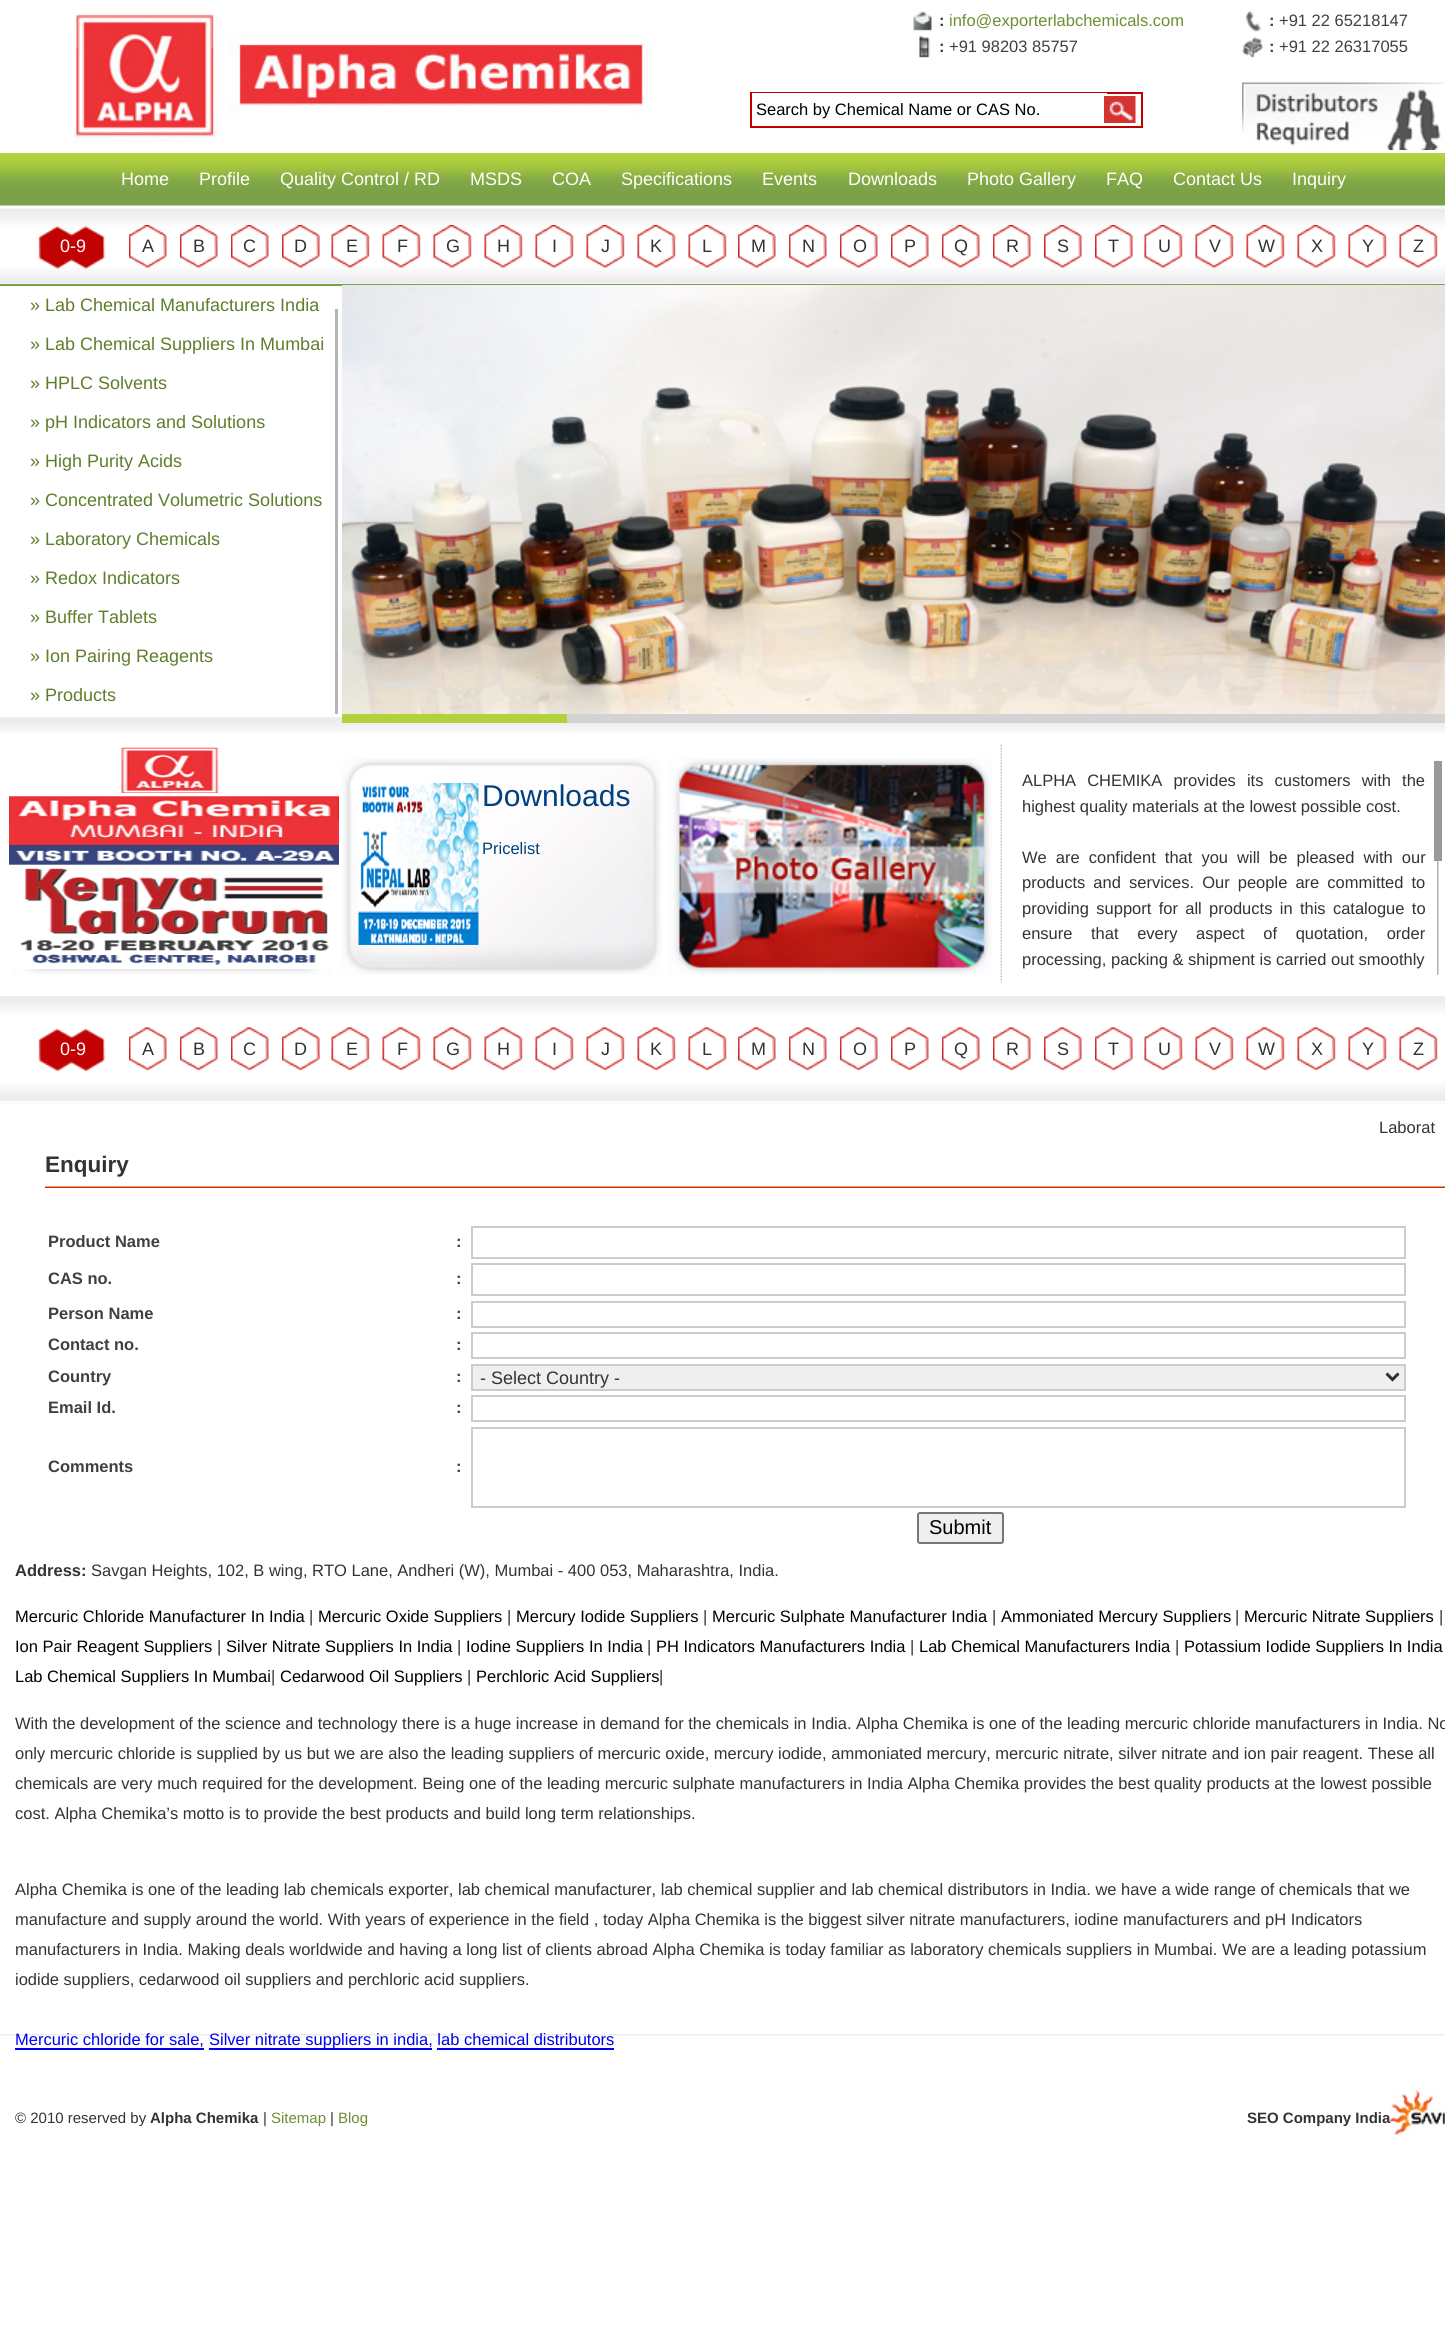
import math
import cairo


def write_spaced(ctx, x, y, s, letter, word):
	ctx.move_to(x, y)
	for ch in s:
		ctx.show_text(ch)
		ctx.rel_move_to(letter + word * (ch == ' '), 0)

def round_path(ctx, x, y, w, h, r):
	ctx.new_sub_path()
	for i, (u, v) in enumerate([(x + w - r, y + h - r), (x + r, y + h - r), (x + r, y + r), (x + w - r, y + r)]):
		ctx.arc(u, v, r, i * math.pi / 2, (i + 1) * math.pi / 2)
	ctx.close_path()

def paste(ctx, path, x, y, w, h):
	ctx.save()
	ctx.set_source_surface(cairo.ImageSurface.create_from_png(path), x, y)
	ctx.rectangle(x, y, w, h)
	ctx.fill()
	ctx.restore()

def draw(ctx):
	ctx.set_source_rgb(1, 1, 1)
	ctx.paint()
	paste(ctx, 'media/1.png', 74, 14, 577, 129)
	paste(ctx, 'media/2.png', 913, 11, 19, 20)
	ctx.select_font_face('Liberation Sans', cairo.FONT_SLANT_NORMAL, cairo.FONT_WEIGHT_BOLD)
	ctx.set_font_size(16.5)
	ctx.set_source_rgb(0.251, 0.251, 0.251)
	ctx.move_to(939, 26)
	ctx.show_text(':')
	ctx.select_font_face('Liberation Sans')
	ctx.set_source_rgb(0.424, 0.561, 0.192)
	ctx.move_to(949, 26)
	ctx.show_text('info@exporterlabchemicals.com')
	paste(ctx, 'media/3.png', 918, 36, 13, 22)
	ctx.select_font_face('Liberation Sans', cairo.FONT_SLANT_NORMAL, cairo.FONT_WEIGHT_BOLD)
	ctx.set_source_rgb(0.251, 0.251, 0.251)
	ctx.move_to(939, 52)
	ctx.show_text(':')
	ctx.select_font_face('Liberation Sans')
	ctx.move_to(949, 52)
	ctx.show_text('+91 98203 85757')
	paste(ctx, 'media/4.png', 1245, 10, 17, 22)
	ctx.select_font_face('Liberation Sans', cairo.FONT_SLANT_NORMAL, cairo.FONT_WEIGHT_BOLD)
	ctx.move_to(1269, 26)
	ctx.show_text(':')
	ctx.select_font_face('Liberation Sans')
	ctx.move_to(1279, 26)
	ctx.show_text('+91 22 65218147')
	paste(ctx, 'media/5.png', 1242, 37, 22, 21)
	ctx.select_font_face('Liberation Sans', cairo.FONT_SLANT_NORMAL, cairo.FONT_WEIGHT_BOLD)
	ctx.move_to(1269, 52)
	ctx.show_text(':')
	ctx.select_font_face('Liberation Sans')
	ctx.move_to(1279, 52)
	ctx.show_text('+91 22 26317055')
	ctx.rectangle(751, 93, 391, 34)
	ctx.set_source_rgb(0.757, 0, 0.004)
	ctx.stroke()
	ctx.set_source_rgb(1, 1, 1)
	ctx.rectangle(752, 93, 355, 1)
	ctx.fill()
	ctx.set_source_rgb(0, 0, 0)
	ctx.move_to(756, 115)
	ctx.show_text('Search by Chemical Name or CAS No.')
	paste(ctx, 'media/6.png', 1104, 96, 32, 27)
	paste(ctx, 'media/7.png', 1242, 82, 203, 68)
	paste(ctx, 'media/8.png', 0, 153, 1445, 53)
	ctx.set_font_size(18)
	ctx.set_source_rgb(1, 1, 1)
	for x, y, s in [
		(121, 185, 'Home'),
		(199, 185, 'Profile'),
		(280, 185, 'Quality Control / RD'),
		(470, 185, 'MSDS'),
		(552, 185, 'COA'),
		(621, 185, 'Specifications'),
		(762, 185, 'Events'),
		(848, 185, 'Downloads'),
		(967, 185, 'Photo Gallery'),
		(1106, 185, 'FAQ'),
		(1173, 185, 'Contact Us'),
		(1292, 185, 'Inquiry'),
	]:
		ctx.move_to(x, y)
		ctx.show_text(s)
	paste(ctx, 'media/9.png', 0, 208, 1445, 76)
	paste(ctx, 'media/10.png', 38, 226, 68, 43)
	ctx.move_to(60, 252)
	ctx.show_text('0-9')
	ctx.set_source_rgba(0.757, 0, 0.008, 0.5)
	ctx.rectangle(70, 235, 4, 1)
	ctx.fill()
	paste(ctx, 'media/11.png', 129, 225, 38, 44)
	paste(ctx, 'media/12.png', 146, 235, 9, 22)
	ctx.set_source_rgb(0.2, 0.2, 0.2)
	ctx.move_to(142, 252)
	ctx.show_text('A')
	paste(ctx, 'media/11.png', 180, 225, 38, 44)
	paste(ctx, 'media/12.png', 197, 235, 9, 22)
	ctx.move_to(193, 252)
	ctx.show_text('B')
	paste(ctx, 'media/11.png', 231, 225, 38, 44)
	paste(ctx, 'media/13.png', 243, 235, 14, 22)
	ctx.move_to(243, 252)
	ctx.show_text('C')
	paste(ctx, 'media/14.png', 282, 225, 38, 44)
	paste(ctx, 'media/13.png', 294, 235, 14, 22)
	ctx.move_to(294, 252)
	ctx.show_text('D')
	paste(ctx, 'media/15.png', 331, 225, 39, 44)
	paste(ctx, 'media/16.png', 349, 235, 8, 22)
	ctx.move_to(346, 252)
	ctx.show_text('E')
	paste(ctx, 'media/17.png', 382, 225, 39, 44)
	paste(ctx, 'media/18.png', 400, 235, 8, 22)
	ctx.move_to(397, 252)
	ctx.show_text('F')
	paste(ctx, 'media/17.png', 433, 225, 39, 44)
	paste(ctx, 'media/19.png', 446, 235, 15, 22)
	ctx.move_to(446, 252)
	ctx.show_text('G')
	paste(ctx, 'media/15.png', 484, 225, 39, 44)
	paste(ctx, 'media/20.png', 502, 235, 8, 22)
	ctx.move_to(497, 252)
	ctx.show_text('H')
	paste(ctx, 'media/21.png', 535, 225, 39, 44)
	paste(ctx, 'media/22.png', 552, 235, 5, 2)
	ctx.move_to(552, 252)
	ctx.show_text('I')
	paste(ctx, 'media/17.png', 586, 225, 39, 44)
	paste(ctx, 'media/23.png', 604, 235, 6, 2)
	ctx.move_to(601, 252)
	ctx.show_text('J')
	paste(ctx, 'media/17.png', 637, 225, 39, 44)
	paste(ctx, 'media/16.png', 655, 235, 8, 22)
	ctx.move_to(650, 252)
	ctx.show_text('K')
	paste(ctx, 'media/17.png', 688, 225, 39, 44)
	paste(ctx, 'media/24.png', 705, 235, 8, 19)
	ctx.move_to(702, 252)
	ctx.show_text('L')
	paste(ctx, 'media/25.png', 738, 225, 38, 44)
	paste(ctx, 'media/26.png', 750, 235, 15, 22)
	ctx.move_to(751, 252)
	ctx.show_text('M')
	paste(ctx, 'media/11.png', 789, 225, 38, 44)
	paste(ctx, 'media/27.png', 807, 235, 9, 22)
	ctx.move_to(802, 252)
	ctx.show_text('N')
	paste(ctx, 'media/11.png', 840, 225, 38, 44)
	paste(ctx, 'media/28.png', 852, 235, 15, 22)
	ctx.move_to(853, 252)
	ctx.show_text('O')
	paste(ctx, 'media/11.png', 891, 225, 38, 44)
	paste(ctx, 'media/12.png', 908, 235, 9, 22)
	ctx.move_to(904, 252)
	ctx.show_text('P')
	paste(ctx, 'media/11.png', 942, 225, 38, 44)
	paste(ctx, 'media/28.png', 954, 235, 15, 22)
	ctx.move_to(954, 252)
	ctx.show_text('Q')
	paste(ctx, 'media/11.png', 993, 225, 38, 44)
	paste(ctx, 'media/13.png', 1005, 235, 14, 22)
	ctx.move_to(1006, 252)
	ctx.show_text('R')
	paste(ctx, 'media/14.png', 1044, 225, 38, 44)
	paste(ctx, 'media/12.png', 1061, 235, 9, 22)
	ctx.move_to(1057, 252)
	ctx.show_text('S')
	paste(ctx, 'media/14.png', 1095, 225, 38, 44)
	paste(ctx, 'media/18.png', 1111, 235, 8, 22)
	ctx.move_to(1108, 252)
	ctx.show_text('T')
	paste(ctx, 'media/17.png', 1144, 225, 39, 44)
	paste(ctx, 'media/13.png', 1158, 235, 14, 22)
	ctx.move_to(1158, 252)
	ctx.show_text('U')
	paste(ctx, 'media/17.png', 1195, 225, 39, 44)
	paste(ctx, 'media/16.png', 1213, 235, 8, 22)
	ctx.move_to(1209, 252)
	ctx.show_text('V')
	paste(ctx, 'media/15.png', 1246, 225, 39, 44)
	paste(ctx, 'media/29.png', 1257, 235, 18, 22)
	ctx.move_to(1258, 252)
	ctx.show_text('W')
	paste(ctx, 'media/21.png', 1297, 225, 39, 44)
	paste(ctx, 'media/16.png', 1315, 235, 8, 22)
	ctx.move_to(1311, 252)
	ctx.show_text('X')
	paste(ctx, 'media/17.png', 1348, 225, 39, 44)
	paste(ctx, 'media/16.png', 1366, 235, 8, 22)
	ctx.move_to(1362, 252)
	ctx.show_text('Y')
	paste(ctx, 'media/17.png', 1399, 225, 39, 44)
	paste(ctx, 'media/30.png', 1416, 235, 8, 22)
	ctx.move_to(1413, 252)
	ctx.show_text('Z')
	ctx.set_source_rgb(0.475, 0.624, 0.282)
	ctx.rectangle(0, 284, 1445, 2)
	ctx.fill()
	ctx.set_source_rgb(0.71, 0.706, 0.71)
	ctx.rectangle(335, 309, 3, 405)
	ctx.fill()
	ctx.set_source_rgb(0.373, 0.49, 0.169)
	for x, y, s in [
		(30, 311, '» Lab Chemical Manufacturers India'),
		(30, 350, '» Lab Chemical Suppliers In Mumbai'),
		(30, 389, '» HPLC Solvents'),
		(30, 428, '» pH Indicators and Solutions'),
		(30, 467, '» High Purity Acids'),
		(30, 506, '» Concentrated Volumetric Solutions'),
		(30, 545, '» Laboratory Chemicals'),
		(30, 584, '» Redox Indicators'),
		(30, 623, '» Buffer Tablets'),
		(30, 662, '» Ion Pairing Reagents'),
		(30, 701, '» Products'),
	]:
		ctx.move_to(x, y)
		ctx.show_text(s)
	paste(ctx, 'media/31.png', 342, 285, 1103, 429)
	paste(ctx, 'media/32.png', 0, 717, 1445, 16)
	ctx.set_source_rgb(0.698, 0.824, 0.239)
	ctx.rectangle(342, 714, 225, 9)
	ctx.fill()
	ctx.set_source_rgb(0.827, 0.827, 0.827)
	ctx.rectangle(567, 714, 878, 9)
	ctx.fill()
	paste(ctx, 'media/33.png', 12, 969, 320, 6)
	paste(ctx, 'media/34.png', 9, 747, 330, 222)
	paste(ctx, 'media/35.png', 342, 758, 320, 217)
	paste(ctx, 'media/36.png', 358, 783, 121, 162)
	ctx.set_font_size(30)
	ctx.set_source_rgb(0, 0.251, 0.502)
	ctx.move_to(482, 806)
	ctx.show_text('Downloads')
	ctx.set_font_size(16.5)
	ctx.move_to(482, 854)
	ctx.show_text('Pricelist')
	paste(ctx, 'media/37.png', 1000, 744, 2, 239)
	paste(ctx, 'media/38.png', 669, 758, 324, 217)
	ctx.set_source_rgb(0.2, 0.2, 0.2)
	write_spaced(ctx, 1022, 786, 'ALPHA CHEMIKA provides its customers with the', 0, 6.5)
	ctx.move_to(1022, 812)
	ctx.show_text('highest quality materials at the lowest possible cost.')
	write_spaced(ctx, 1022, 863, 'We are confident that you will be pleased with our', 0, 4.5)
	write_spaced(ctx, 1022, 888, 'products and services. Our people are committed to', 0, 3.5)
	write_spaced(ctx, 1022, 914, 'providing support for all products in this catalogue to', 0, 2.75)
	write_spaced(ctx, 1022, 939, 'ensure that every aspect of quotation, order', 0, 14)
	ctx.move_to(1022, 965)
	ctx.show_text('processing, packing & shipment is carried out smoothly')
	paste(ctx, 'media/39.png', 1437, 760, 2, 215)
	ctx.set_source_rgb(0.6, 0.6, 0.6)
	ctx.rectangle(1434, 761, 8, 100)
	ctx.fill()
	paste(ctx, 'media/40.png', 0, 996, 1445, 108)
	paste(ctx, 'media/41.png', 38, 1028, 68, 43)
	ctx.set_font_size(18)
	ctx.set_source_rgb(1, 1, 1)
	ctx.move_to(60, 1055)
	ctx.show_text('0-9')
	ctx.set_source_rgb(0.761, 0.004, 0.008)
	ctx.rectangle(70, 1038, 4, 1)
	ctx.fill()
	paste(ctx, 'media/42.png', 129, 1027, 38, 44)
	paste(ctx, 'media/43.png', 146, 1038, 9, 21)
	ctx.set_source_rgb(0.2, 0.2, 0.2)
	ctx.move_to(142, 1055)
	ctx.show_text('A')
	paste(ctx, 'media/42.png', 180, 1027, 38, 44)
	paste(ctx, 'media/43.png', 197, 1038, 9, 21)
	ctx.move_to(193, 1055)
	ctx.show_text('B')
	paste(ctx, 'media/42.png', 231, 1027, 38, 44)
	paste(ctx, 'media/44.png', 243, 1038, 14, 21)
	ctx.move_to(243, 1055)
	ctx.show_text('C')
	paste(ctx, 'media/45.png', 282, 1027, 38, 44)
	paste(ctx, 'media/44.png', 294, 1038, 14, 21)
	ctx.move_to(294, 1055)
	ctx.show_text('D')
	paste(ctx, 'media/46.png', 331, 1027, 39, 44)
	paste(ctx, 'media/47.png', 349, 1038, 8, 21)
	ctx.move_to(346, 1055)
	ctx.show_text('E')
	paste(ctx, 'media/48.png', 382, 1027, 39, 44)
	ctx.move_to(397, 1055)
	ctx.show_text('F')
	paste(ctx, 'media/48.png', 433, 1027, 39, 44)
	paste(ctx, 'media/49.png', 446, 1038, 15, 21)
	ctx.move_to(446, 1055)
	ctx.show_text('G')
	paste(ctx, 'media/46.png', 484, 1027, 39, 44)
	paste(ctx, 'media/50.png', 498, 1038, 12, 21)
	ctx.move_to(497, 1055)
	ctx.show_text('H')
	paste(ctx, 'media/51.png', 535, 1027, 39, 44)
	ctx.move_to(552, 1055)
	ctx.show_text('I')
	ctx.set_source_rgb(0.969, 1, 1)
	ctx.rectangle(552, 1038, 5, 1)
	ctx.fill()
	paste(ctx, 'media/48.png', 586, 1027, 39, 44)
	paste(ctx, 'media/52.png', 604, 1038, 7, 1)
	ctx.set_source_rgb(0.2, 0.2, 0.2)
	ctx.move_to(601, 1055)
	ctx.show_text('J')
	paste(ctx, 'media/48.png', 637, 1027, 39, 44)
	paste(ctx, 'media/47.png', 655, 1038, 8, 21)
	ctx.move_to(650, 1055)
	ctx.show_text('K')
	paste(ctx, 'media/48.png', 688, 1027, 39, 44)
	ctx.move_to(702, 1055)
	ctx.show_text('L')
	paste(ctx, 'media/53.png', 738, 1027, 38, 44)
	paste(ctx, 'media/54.png', 750, 1038, 15, 21)
	ctx.move_to(751, 1055)
	ctx.show_text('M')
	paste(ctx, 'media/42.png', 789, 1027, 38, 44)
	paste(ctx, 'media/55.png', 807, 1038, 9, 21)
	ctx.move_to(802, 1055)
	ctx.show_text('N')
	paste(ctx, 'media/42.png', 840, 1027, 38, 44)
	paste(ctx, 'media/56.png', 852, 1038, 15, 21)
	ctx.move_to(853, 1055)
	ctx.show_text('O')
	paste(ctx, 'media/42.png', 891, 1027, 38, 44)
	paste(ctx, 'media/43.png', 908, 1038, 9, 21)
	ctx.move_to(904, 1055)
	ctx.show_text('P')
	paste(ctx, 'media/42.png', 942, 1027, 38, 44)
	paste(ctx, 'media/56.png', 954, 1038, 15, 21)
	ctx.move_to(954, 1055)
	ctx.show_text('Q')
	paste(ctx, 'media/42.png', 993, 1027, 38, 44)
	paste(ctx, 'media/44.png', 1005, 1038, 14, 21)
	ctx.move_to(1006, 1055)
	ctx.show_text('R')
	paste(ctx, 'media/45.png', 1044, 1027, 38, 44)
	paste(ctx, 'media/43.png', 1061, 1038, 9, 21)
	ctx.move_to(1057, 1055)
	ctx.show_text('S')
	paste(ctx, 'media/45.png', 1095, 1027, 38, 44)
	ctx.move_to(1108, 1055)
	ctx.show_text('T')
	paste(ctx, 'media/48.png', 1144, 1027, 39, 44)
	paste(ctx, 'media/44.png', 1158, 1038, 14, 21)
	ctx.move_to(1158, 1055)
	ctx.show_text('U')
	paste(ctx, 'media/48.png', 1195, 1027, 39, 44)
	paste(ctx, 'media/47.png', 1213, 1038, 8, 21)
	ctx.move_to(1209, 1055)
	ctx.show_text('V')
	paste(ctx, 'media/46.png', 1246, 1027, 39, 44)
	paste(ctx, 'media/57.png', 1257, 1038, 18, 21)
	ctx.move_to(1258, 1055)
	ctx.show_text('W')
	paste(ctx, 'media/51.png', 1297, 1027, 39, 44)
	paste(ctx, 'media/47.png', 1315, 1038, 8, 21)
	ctx.move_to(1311, 1055)
	ctx.show_text('X')
	paste(ctx, 'media/48.png', 1348, 1027, 39, 44)
	paste(ctx, 'media/47.png', 1366, 1038, 8, 21)
	ctx.move_to(1362, 1055)
	ctx.show_text('Y')
	paste(ctx, 'media/48.png', 1399, 1027, 39, 44)
	paste(ctx, 'media/58.png', 1416, 1038, 8, 21)
	ctx.move_to(1413, 1055)
	ctx.show_text('Z')
	ctx.set_font_size(16.5)
	ctx.move_to(1379, 1133)
	ctx.show_text('Laborat')
	paste(ctx, 'media/59.png', 45, 1186, 1400, 2)
	ctx.select_font_face('Liberation Sans', cairo.FONT_SLANT_NORMAL, cairo.FONT_WEIGHT_BOLD)
	ctx.set_font_size(22.5)
	ctx.move_to(45, 1172)
	ctx.show_text('Enquiry')
	ctx.set_font_size(16.5)
	ctx.set_source_rgb(0.251, 0.251, 0.251)
	ctx.move_to(48, 1247)
	ctx.show_text('Product Name')
	ctx.move_to(456, 1247)
	ctx.show_text(':')
	ctx.rectangle(472, 1227, 933, 31)
	ctx.set_source_rgb(0.8, 0.8, 0.8)
	ctx.stroke()
	ctx.set_source_rgb(0.251, 0.251, 0.251)
	ctx.move_to(48, 1284)
	ctx.show_text('CAS no.')
	ctx.move_to(456, 1284)
	ctx.show_text(':')
	ctx.rectangle(472, 1264, 933, 31)
	ctx.set_source_rgb(0.8, 0.8, 0.8)
	ctx.stroke()
	ctx.set_source_rgb(0.251, 0.251, 0.251)
	ctx.move_to(48, 1319)
	ctx.show_text('Person Name')
	ctx.move_to(456, 1319)
	ctx.show_text(':')
	ctx.rectangle(472, 1302, 933, 25)
	ctx.set_source_rgb(0.8, 0.8, 0.8)
	ctx.stroke()
	ctx.set_source_rgb(0.251, 0.251, 0.251)
	ctx.move_to(48, 1350)
	ctx.show_text('Contact no.')
	ctx.move_to(456, 1350)
	ctx.show_text(':')
	ctx.rectangle(472, 1333, 933, 25)
	ctx.set_source_rgb(0.8, 0.8, 0.8)
	ctx.stroke()
	ctx.set_source_rgb(0.251, 0.251, 0.251)
	ctx.move_to(48, 1382)
	ctx.show_text('Country')
	ctx.move_to(456, 1382)
	ctx.show_text(':')
	ctx.set_source_rgb(0.937, 0.937, 0.937)
	ctx.rectangle(472, 1365, 933, 25)
	ctx.fill_preserve()
	ctx.set_source_rgb(0.8, 0.8, 0.8)
	ctx.stroke()
	ctx.new_path()
	ctx.move_to(1386.5, 1373.5)
	ctx.line_to(1392.5, 1379.5)
	ctx.line_to(1398.5, 1373.5)
	ctx.set_source_rgb(0.188, 0.188, 0.188)
	ctx.set_line_width(3)
	ctx.stroke()
	ctx.select_font_face('Liberation Sans')
	ctx.set_font_size(18)
	ctx.set_source_rgb(0.2, 0.2, 0.2)
	ctx.move_to(480, 1384)
	ctx.show_text('- Select Country -')
	ctx.select_font_face('Liberation Sans', cairo.FONT_SLANT_NORMAL, cairo.FONT_WEIGHT_BOLD)
	ctx.set_font_size(16.5)
	ctx.set_source_rgb(0.251, 0.251, 0.251)
	ctx.move_to(48, 1413)
	ctx.show_text('Email Id.')
	ctx.move_to(456, 1413)
	ctx.show_text(':')
	ctx.rectangle(472, 1396, 933, 25)
	ctx.set_source_rgb(0.8, 0.8, 0.8)
	ctx.set_line_width(2)
	ctx.stroke()
	ctx.set_source_rgb(0.251, 0.251, 0.251)
	ctx.move_to(48, 1472)
	ctx.show_text('Comments')
	ctx.move_to(456, 1472)
	ctx.show_text(':')
	ctx.rectangle(472, 1428, 933, 79)
	ctx.set_source_rgb(0.8, 0.8, 0.8)
	ctx.stroke()
	ctx.set_source_rgb(0.937, 0.937, 0.937)
	round_path(ctx, 918, 1513, 85, 30, 2)
	ctx.fill_preserve()
	ctx.set_source_rgb(0.463, 0.463, 0.463)
	ctx.stroke()
	ctx.select_font_face('Liberation Sans')
	ctx.set_font_size(20)
	ctx.set_source_rgb(0, 0, 0)
	ctx.move_to(929, 1534)
	ctx.show_text('Submit')
	paste(ctx, 'media/60.png', 0, 2034, 1445, 2)
	ctx.select_font_face('Liberation Sans', cairo.FONT_SLANT_NORMAL, cairo.FONT_WEIGHT_BOLD)
	ctx.set_font_size(16.5)
	ctx.set_source_rgb(0.2, 0.2, 0.2)
	ctx.move_to(15, 1576)
	ctx.show_text('Address:')
	ctx.select_font_face('Liberation Sans')
	ctx.move_to(91, 1576)
	ctx.show_text('Savgan Heights, 102, B wing, RTO Lane, Andheri (W), Mumbai - 400 053, Maharashtra, India.')
	ctx.set_source_rgb(0, 0, 0)
	ctx.move_to(15, 1622)
	ctx.show_text('Mercuric Chloride Manufacturer In India')
	ctx.set_source_rgb(0.2, 0.2, 0.2)
	ctx.move_to(309, 1622)
	ctx.show_text('|')
	ctx.set_source_rgb(0, 0, 0)
	ctx.move_to(318, 1622)
	ctx.show_text('Mercuric Oxide Suppliers')
	ctx.set_source_rgb(0.2, 0.2, 0.2)
	ctx.move_to(507, 1622)
	ctx.show_text('|')
	ctx.set_source_rgb(0, 0, 0)
	ctx.move_to(516, 1622)
	ctx.show_text('Mercury Iodide Suppliers')
	ctx.set_source_rgb(0.2, 0.2, 0.2)
	ctx.move_to(703, 1622)
	ctx.show_text('|')
	ctx.set_source_rgb(0, 0, 0)
	ctx.move_to(712, 1622)
	ctx.show_text('Mercuric Sulphate Manufacturer India')
	ctx.set_source_rgb(0.2, 0.2, 0.2)
	ctx.move_to(992, 1622)
	ctx.show_text('|')
	ctx.set_source_rgb(0, 0, 0)
	ctx.move_to(1001, 1622)
	ctx.show_text('Ammoniated Mercury Suppliers')
	ctx.set_source_rgb(0.2, 0.2, 0.2)
	ctx.move_to(1235, 1622)
	ctx.show_text('|')
	ctx.set_source_rgb(0, 0, 0)
	ctx.move_to(1244, 1622)
	ctx.show_text('Mercuric Nitrate Suppliers')
	ctx.set_source_rgb(0.2, 0.2, 0.2)
	ctx.move_to(1439, 1622)
	ctx.show_text('|')
	ctx.set_source_rgb(0, 0, 0)
	ctx.move_to(15, 1652)
	ctx.show_text('Ion Pair Reagent Suppliers')
	ctx.set_source_rgb(0.2, 0.2, 0.2)
	ctx.move_to(217, 1652)
	ctx.show_text('|')
	ctx.set_source_rgb(0, 0, 0)
	ctx.move_to(226, 1652)
	ctx.show_text('Silver Nitrate Suppliers In India')
	ctx.set_source_rgb(0.2, 0.2, 0.2)
	ctx.move_to(457, 1652)
	ctx.show_text('|')
	ctx.set_source_rgb(0, 0, 0)
	ctx.move_to(466, 1652)
	ctx.show_text('Iodine Suppliers In India')
	ctx.set_source_rgb(0.2, 0.2, 0.2)
	ctx.move_to(647, 1652)
	ctx.show_text('|')
	ctx.set_source_rgb(0, 0, 0)
	ctx.move_to(656, 1652)
	ctx.show_text('PH Indicators Manufacturers India')
	ctx.set_source_rgb(0.2, 0.2, 0.2)
	ctx.move_to(910, 1652)
	ctx.show_text('|')
	ctx.set_source_rgb(0, 0, 0)
	ctx.move_to(919, 1652)
	ctx.show_text('Lab Chemical Manufacturers India')
	ctx.set_source_rgb(0.2, 0.2, 0.2)
	ctx.move_to(1175, 1652)
	ctx.show_text('|')
	ctx.set_source_rgb(0, 0, 0)
	ctx.move_to(1184, 1652)
	ctx.show_text('Potassium Iodide Suppliers In India')
	ctx.move_to(15, 1682)
	ctx.show_text('Lab Chemical Suppliers In Mumbai')
	ctx.set_source_rgb(0.2, 0.2, 0.2)
	ctx.move_to(271, 1682)
	ctx.show_text('|')
	ctx.set_source_rgb(0, 0, 0)
	ctx.move_to(280, 1682)
	ctx.show_text('Cedarwood Oil Suppliers')
	ctx.set_source_rgb(0.2, 0.2, 0.2)
	ctx.move_to(467, 1682)
	ctx.show_text('|')
	ctx.set_source_rgb(0, 0, 0)
	ctx.move_to(476, 1682)
	ctx.show_text('Perchloric Acid Suppliers')
	ctx.set_source_rgb(0.2, 0.2, 0.2)
	for x, y, s in [
		(659, 1682, '|'),
		(15, 1729, 'With the development of the science and technology there is a huge increase in demand for the chemicals in India. Alpha Chemika is one of the leading mercuric chloride manufacturers in India. No'),
		(15, 1759, 'only mercuric chloride is supplied by us but we are also the leading suppliers of mercuric oxide, mercury iodide, ammoniated mercury, mercuric nitrate, silver nitrate and ion pair reagent. These all'),
		(15, 1789, 'chemicals are very much required for the development. Being one of the leading mercuric sulphate manufacturers in India Alpha Chemika provides the best quality products at the lowest possible'),
		(15, 1819, 'cost. Alpha Chemika’s motto is to provide the best products and build long term relationships.'),
		(15, 1895, 'Alpha Chemika is one of the leading lab chemicals exporter, lab chemical manufacturer, lab chemical supplier and lab chemical distributors in India. we have a wide range of chemicals that we'),
		(15, 1925, 'manufacture and supply around the world. With years of experience in the field , today Alpha Chemika is the biggest silver nitrate manufacturers, iodine manufacturers and pH Indicators'),
		(15, 1955, 'manufacturers in India. Making deals worldwide and having a long list of clients abroad Alpha Chemika is today familiar as laboratory chemicals suppliers in Mumbai. We are a leading potassium'),
		(15, 1985, 'iodide suppliers, cedarwood oil suppliers and perchloric acid suppliers.'),
	]:
		ctx.move_to(x, y)
		ctx.show_text(s)
	ctx.set_source_rgb(0, 0, 0.933)
	ctx.move_to(15, 2045)
	ctx.show_text('Mercuric chloride for sale,')
	ctx.rectangle(15, 2048, 189, 2)
	ctx.fill()
	ctx.rectangle(209, 2048, 223, 2)
	ctx.fill()
	ctx.move_to(209, 2045)
	ctx.show_text('Silver nitrate suppliers in india, lab chemical distributors')
	ctx.rectangle(437, 2048, 177, 2)
	ctx.fill()
	ctx.set_font_size(15)
	ctx.set_source_rgb(0.2, 0.2, 0.2)
	ctx.move_to(15, 2123)
	ctx.show_text('© 2010 reserved by')
	ctx.select_font_face('Liberation Sans', cairo.FONT_SLANT_NORMAL, cairo.FONT_WEIGHT_BOLD)
	ctx.move_to(150, 2123)
	ctx.show_text('Alpha Chemika')
	ctx.select_font_face('Liberation Sans')
	ctx.move_to(263, 2123)
	ctx.show_text('|')
	ctx.set_source_rgb(0.424, 0.561, 0.192)
	ctx.move_to(271, 2123)
	ctx.show_text('Sitemap')
	ctx.set_source_rgb(0.2, 0.2, 0.2)
	ctx.move_to(330, 2123)
	ctx.show_text('|')
	ctx.set_source_rgb(0.424, 0.561, 0.192)
	ctx.move_to(338, 2123)
	ctx.show_text('Blog')
	paste(ctx, 'media/61.png', 1390, 2089, 55, 46)
	ctx.select_font_face('Liberation Sans', cairo.FONT_SLANT_NORMAL, cairo.FONT_WEIGHT_BOLD)
	ctx.set_source_rgb(0.2, 0.2, 0.2)
	ctx.move_to(1247, 2123)
	ctx.show_text('SEO Company India')


surface = cairo.ImageSurface(cairo.FORMAT_RGB24, 1445, 2342)
ctx = cairo.Context(surface)
options = cairo.FontOptions()
options.set_hint_metrics(cairo.HINT_METRICS_OFF)
options.set_hint_style(cairo.HINT_STYLE_NONE)
ctx.set_font_options(options)
ctx.set_miter_limit(4)
draw(ctx)
surface.write_to_png('image.png')
